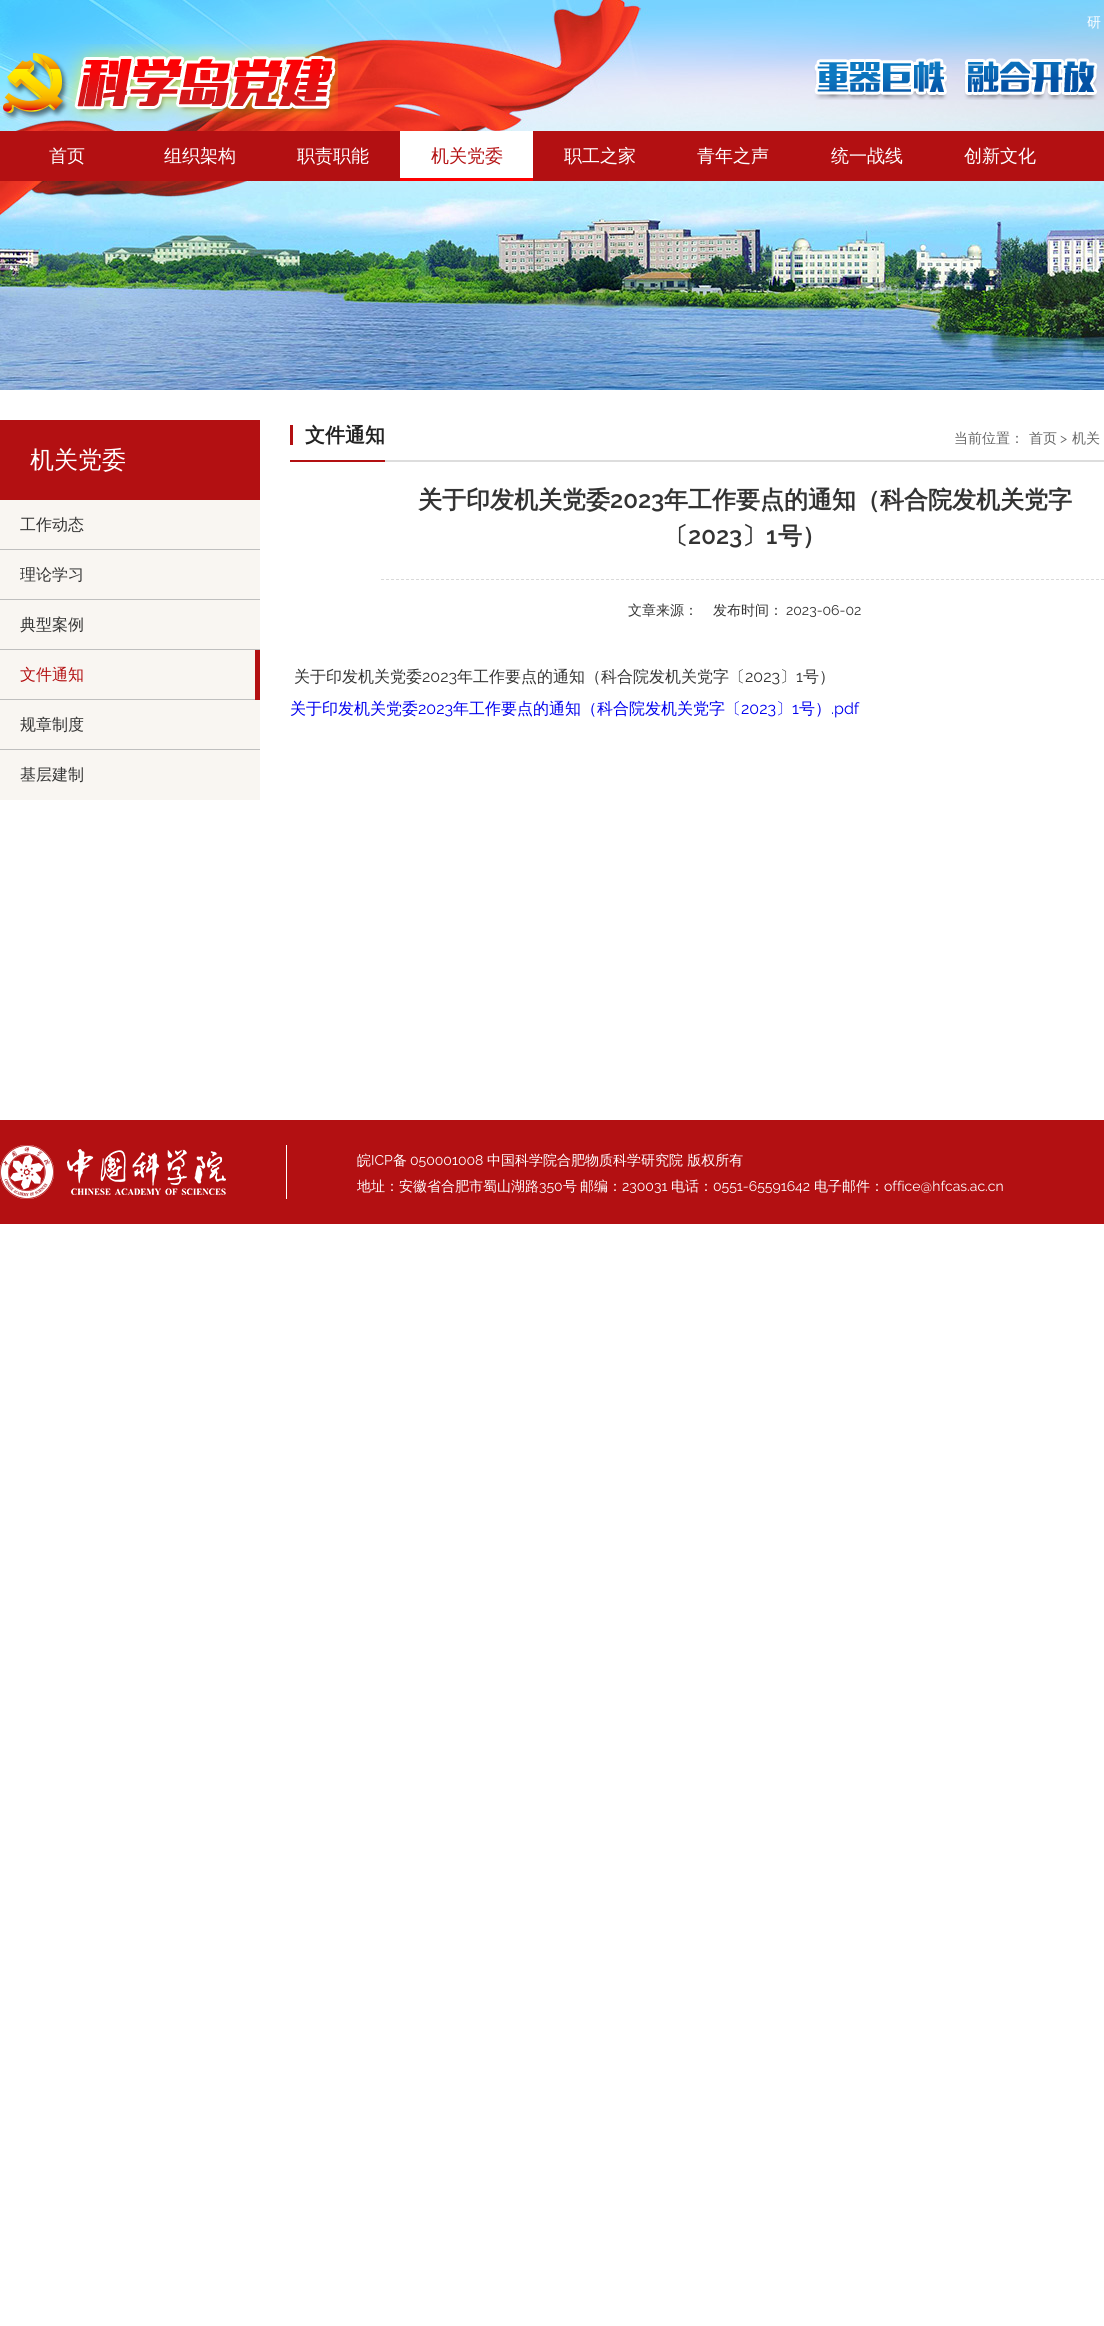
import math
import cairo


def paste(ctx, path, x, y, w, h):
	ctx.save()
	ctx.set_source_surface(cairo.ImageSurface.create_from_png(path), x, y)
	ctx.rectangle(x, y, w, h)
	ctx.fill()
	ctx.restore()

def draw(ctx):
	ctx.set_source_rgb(1, 1, 1)
	ctx.paint()
	paste(ctx, 'media/1.png', 0, 0, 1104, 390)
	ctx.select_font_face('WenQuanYi Zen Hei Medium')
	ctx.set_font_size(14)
	ctx.set_source_rgb(1, 1, 1)
	ctx.move_to(1087, 27)
	ctx.show_text('研')
	paste(ctx, 'media/2.png', 3, 44, 335, 77)
	paste(ctx, 'media/3.png', 814, 58, 284, 42)
	ctx.set_source_rgb(0.702, 0.063, 0.071)
	ctx.rectangle(0, 131, 1104, 50)
	ctx.fill()
	ctx.set_font_size(18)
	ctx.set_source_rgb(1, 1, 1)
	for x, y, s in [
		(49, 162, '首页'),
		(164, 162, '组织架构'),
		(297, 162, '职责职能'),
	]:
		ctx.move_to(x, y)
		ctx.show_text(s)
	ctx.rectangle(400, 131, 133, 47)
	ctx.fill()
	ctx.set_source_rgb(0.702, 0.063, 0.071)
	ctx.move_to(431, 162)
	ctx.show_text('机关党委')
	ctx.set_source_rgb(1, 0, 0)
	ctx.rectangle(400, 178, 133, 3)
	ctx.fill()
	ctx.set_source_rgb(1, 1, 1)
	for x, y, s in [
		(564, 162, '职工之家'),
		(697, 162, '青年之声'),
		(831, 162, '统一战线'),
		(964, 162, '创新文化'),
	]:
		ctx.move_to(x, y)
		ctx.show_text(s)
	ctx.set_source_rgb(0.702, 0.063, 0.071)
	ctx.rectangle(0, 420, 260, 80)
	ctx.fill()
	ctx.set_font_size(24)
	ctx.set_source_rgb(1, 1, 1)
	ctx.move_to(30, 468)
	ctx.show_text('机关党委')
	ctx.set_source_rgb(0.973, 0.961, 0.949)
	ctx.rectangle(0, 500, 260, 49)
	ctx.fill()
	ctx.set_source_rgb(0.749, 0.749, 0.749)
	ctx.rectangle(0, 549, 260, 1)
	ctx.fill()
	ctx.set_font_size(16)
	ctx.set_source_rgb(0.2, 0.2, 0.2)
	ctx.move_to(20, 530)
	ctx.show_text('工作动态')
	ctx.set_source_rgb(0.973, 0.961, 0.949)
	ctx.rectangle(0, 550, 260, 49)
	ctx.fill()
	ctx.set_source_rgb(0.749, 0.749, 0.749)
	ctx.rectangle(0, 599, 260, 1)
	ctx.fill()
	ctx.set_source_rgb(0.2, 0.2, 0.2)
	ctx.move_to(20, 580)
	ctx.show_text('理论学习')
	ctx.set_source_rgb(0.973, 0.961, 0.949)
	ctx.rectangle(0, 600, 260, 49)
	ctx.fill()
	ctx.set_source_rgb(0.749, 0.749, 0.749)
	ctx.rectangle(0, 649, 260, 1)
	ctx.fill()
	ctx.set_source_rgb(0.2, 0.2, 0.2)
	ctx.move_to(20, 630)
	ctx.show_text('典型案例')
	ctx.set_source_rgb(0.973, 0.961, 0.949)
	ctx.rectangle(0, 650, 255, 49)
	ctx.fill()
	ctx.set_source_rgb(0.749, 0.749, 0.749)
	ctx.rectangle(0, 699, 260, 1)
	ctx.fill()
	ctx.set_source_rgb(0.702, 0.063, 0.071)
	ctx.move_to(20, 680)
	ctx.show_text('文件通知')
	ctx.rectangle(255, 650, 5, 50)
	ctx.fill()
	ctx.set_source_rgb(0.973, 0.961, 0.949)
	ctx.rectangle(0, 700, 260, 49)
	ctx.fill()
	ctx.set_source_rgb(0.749, 0.749, 0.749)
	ctx.rectangle(0, 749, 260, 1)
	ctx.fill()
	ctx.set_source_rgb(0.2, 0.2, 0.2)
	ctx.move_to(20, 730)
	ctx.show_text('规章制度')
	ctx.set_source_rgb(0.973, 0.961, 0.949)
	ctx.rectangle(0, 750, 260, 50)
	ctx.fill()
	ctx.set_source_rgb(0.2, 0.2, 0.2)
	ctx.move_to(20, 780)
	ctx.show_text('基层建制')
	ctx.set_source_rgb(0.867, 0.867, 0.867)
	ctx.rectangle(385, 460, 719, 2)
	ctx.fill()
	ctx.set_source_rgb(0.702, 0.063, 0.071)
	ctx.rectangle(290, 425, 3, 20)
	ctx.fill()
	ctx.select_font_face('WenQuanYi Zen Hei', cairo.FONT_SLANT_NORMAL, cairo.FONT_WEIGHT_BOLD)
	ctx.set_font_size(20)
	ctx.set_source_rgb(0.133, 0.133, 0.133)
	ctx.move_to(305, 442)
	ctx.show_text('文件通知')
	ctx.set_source_rgb(0.702, 0.063, 0.071)
	ctx.rectangle(290, 460, 95, 2)
	ctx.fill()
	ctx.select_font_face('WenQuanYi Zen Hei Medium')
	ctx.set_font_size(14)
	ctx.set_source_rgb(0.4, 0.4, 0.4)
	ctx.move_to(954, 443)
	ctx.show_text('当前位置：')
	ctx.move_to(1029, 443)
	ctx.show_text('首页')
	ctx.select_font_face('Raleway')
	ctx.move_to(1060, 443)
	ctx.show_text('>')
	ctx.select_font_face('WenQuanYi Zen Hei Medium')
	ctx.move_to(1072, 443)
	ctx.show_text('机关')
	ctx.new_path()
	ctx.move_to(381, 579.5)
	ctx.line_to(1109, 579.5)
	ctx.set_source_rgb(0.855, 0.855, 0.855)
	ctx.set_line_width(1)
	ctx.set_dash([3, 2])
	ctx.stroke()
	ctx.select_font_face('WenQuanYi Zen Hei', cairo.FONT_SLANT_NORMAL, cairo.FONT_WEIGHT_BOLD)
	ctx.set_font_size(24)
	ctx.set_source_rgb(0.2, 0.2, 0.2)
	ctx.move_to(418, 508)
	ctx.show_text('关于印发机关党委')
	ctx.select_font_face('Raleway SemiBold')
	ctx.move_to(610, 508)
	ctx.show_text('2023')
	ctx.select_font_face('WenQuanYi Zen Hei', cairo.FONT_SLANT_NORMAL, cairo.FONT_WEIGHT_BOLD)
	ctx.move_to(664, 508)
	ctx.show_text('年工作要点的通知（科合院发机关党字')
	ctx.move_to(664, 544)
	ctx.show_text('〔')
	ctx.select_font_face('Raleway SemiBold')
	ctx.move_to(688, 544)
	ctx.show_text('2023')
	ctx.select_font_face('WenQuanYi Zen Hei', cairo.FONT_SLANT_NORMAL, cairo.FONT_WEIGHT_BOLD)
	ctx.move_to(742, 544)
	ctx.show_text('〕')
	ctx.select_font_face('Raleway SemiBold')
	ctx.move_to(766, 544)
	ctx.show_text('1')
	ctx.select_font_face('WenQuanYi Zen Hei', cairo.FONT_SLANT_NORMAL, cairo.FONT_WEIGHT_BOLD)
	ctx.move_to(778, 544)
	ctx.show_text('号）')
	ctx.select_font_face('WenQuanYi Zen Hei Medium')
	ctx.set_font_size(14)
	ctx.move_to(628, 615)
	ctx.show_text('文章来源：')
	ctx.move_to(713, 615)
	ctx.show_text('发布时间：')
	ctx.select_font_face('Raleway')
	ctx.move_to(786, 615)
	ctx.show_text('2023-06-02')
	ctx.select_font_face('WenQuanYi Zen Hei Medium')
	ctx.set_font_size(16)
	ctx.move_to(294, 682)
	ctx.show_text('关于印发机关党委')
	ctx.select_font_face('Raleway')
	ctx.move_to(422, 682)
	ctx.show_text('2023')
	ctx.select_font_face('WenQuanYi Zen Hei Medium')
	ctx.move_to(457, 682)
	ctx.show_text('年工作要点的通知（科合院发机关党字〔')
	ctx.select_font_face('Raleway')
	ctx.move_to(745, 682)
	ctx.show_text('2023')
	ctx.select_font_face('WenQuanYi Zen Hei Medium')
	ctx.move_to(780, 682)
	ctx.show_text('〕')
	ctx.select_font_face('Raleway')
	ctx.move_to(796, 682)
	ctx.show_text('1')
	ctx.select_font_face('WenQuanYi Zen Hei Medium')
	ctx.move_to(803, 682)
	ctx.show_text('号）')
	ctx.set_source_rgb(0, 0, 0.933)
	ctx.move_to(290, 714)
	ctx.show_text('关于印发机关党委')
	ctx.select_font_face('Raleway')
	ctx.move_to(418, 714)
	ctx.show_text('2023')
	ctx.select_font_face('WenQuanYi Zen Hei Medium')
	ctx.move_to(453, 714)
	ctx.show_text('年工作要点的通知（科合院发机关党字〔')
	ctx.select_font_face('Raleway')
	ctx.move_to(741, 714)
	ctx.show_text('2023')
	ctx.select_font_face('WenQuanYi Zen Hei Medium')
	ctx.move_to(776, 714)
	ctx.show_text('〕')
	ctx.select_font_face('Raleway')
	ctx.move_to(792, 714)
	ctx.show_text('1')
	ctx.select_font_face('WenQuanYi Zen Hei Medium')
	ctx.move_to(799, 714)
	ctx.show_text('号）')
	ctx.select_font_face('Raleway')
	ctx.move_to(831, 714)
	ctx.show_text('.pdf')
	ctx.set_source_rgb(0.702, 0.063, 0.071)
	ctx.rectangle(0, 1120, 1104, 104)
	ctx.fill()
	ctx.set_source_rgb(1, 1, 1)
	ctx.rectangle(286, 1145, 1, 54)
	ctx.fill()
	paste(ctx, 'media/4.png', 0, 1145, 226, 54)
	ctx.select_font_face('WenQuanYi Zen Hei Medium')
	ctx.set_font_size(14)
	ctx.move_to(357, 1165)
	ctx.show_text('皖')
	ctx.select_font_face('Raleway')
	ctx.move_to(371, 1165)
	ctx.show_text('ICP')
	ctx.select_font_face('WenQuanYi Zen Hei Medium')
	ctx.move_to(393, 1165)
	ctx.show_text('备')
	ctx.select_font_face('Raleway')
	ctx.move_to(410, 1165)
	ctx.show_text('050001008')
	ctx.select_font_face('WenQuanYi Zen Hei Medium')
	ctx.move_to(487, 1165)
	ctx.show_text('中国科学院合肥物质科学研究院 版权所有')
	ctx.move_to(357, 1191)
	ctx.show_text('地址：安徽省合肥市蜀山湖路')
	ctx.select_font_face('Raleway')
	ctx.move_to(539, 1191)
	ctx.show_text('350')
	ctx.select_font_face('WenQuanYi Zen Hei Medium')
	ctx.move_to(563, 1191)
	ctx.show_text('号')
	ctx.move_to(580, 1191)
	ctx.show_text('邮编：')
	ctx.select_font_face('Raleway')
	ctx.move_to(622, 1191)
	ctx.show_text('230031')
	ctx.select_font_face('WenQuanYi Zen Hei Medium')
	ctx.move_to(671, 1191)
	ctx.show_text('电话：')
	ctx.select_font_face('Raleway')
	ctx.move_to(713, 1191)
	ctx.show_text('0551-65591642')
	ctx.select_font_face('WenQuanYi Zen Hei Medium')
	ctx.move_to(814, 1191)
	ctx.show_text('电子邮件：')
	ctx.select_font_face('Raleway')
	ctx.move_to(884, 1191)
	ctx.show_text('office@hfcas.ac.cn')


surface = cairo.ImageSurface(cairo.FORMAT_RGB24, 1104, 2326)
ctx = cairo.Context(surface)
options = cairo.FontOptions()
options.set_hint_metrics(cairo.HINT_METRICS_OFF)
options.set_hint_style(cairo.HINT_STYLE_NONE)
ctx.set_font_options(options)
ctx.set_miter_limit(4)
draw(ctx)
surface.write_to_png('image.png')
